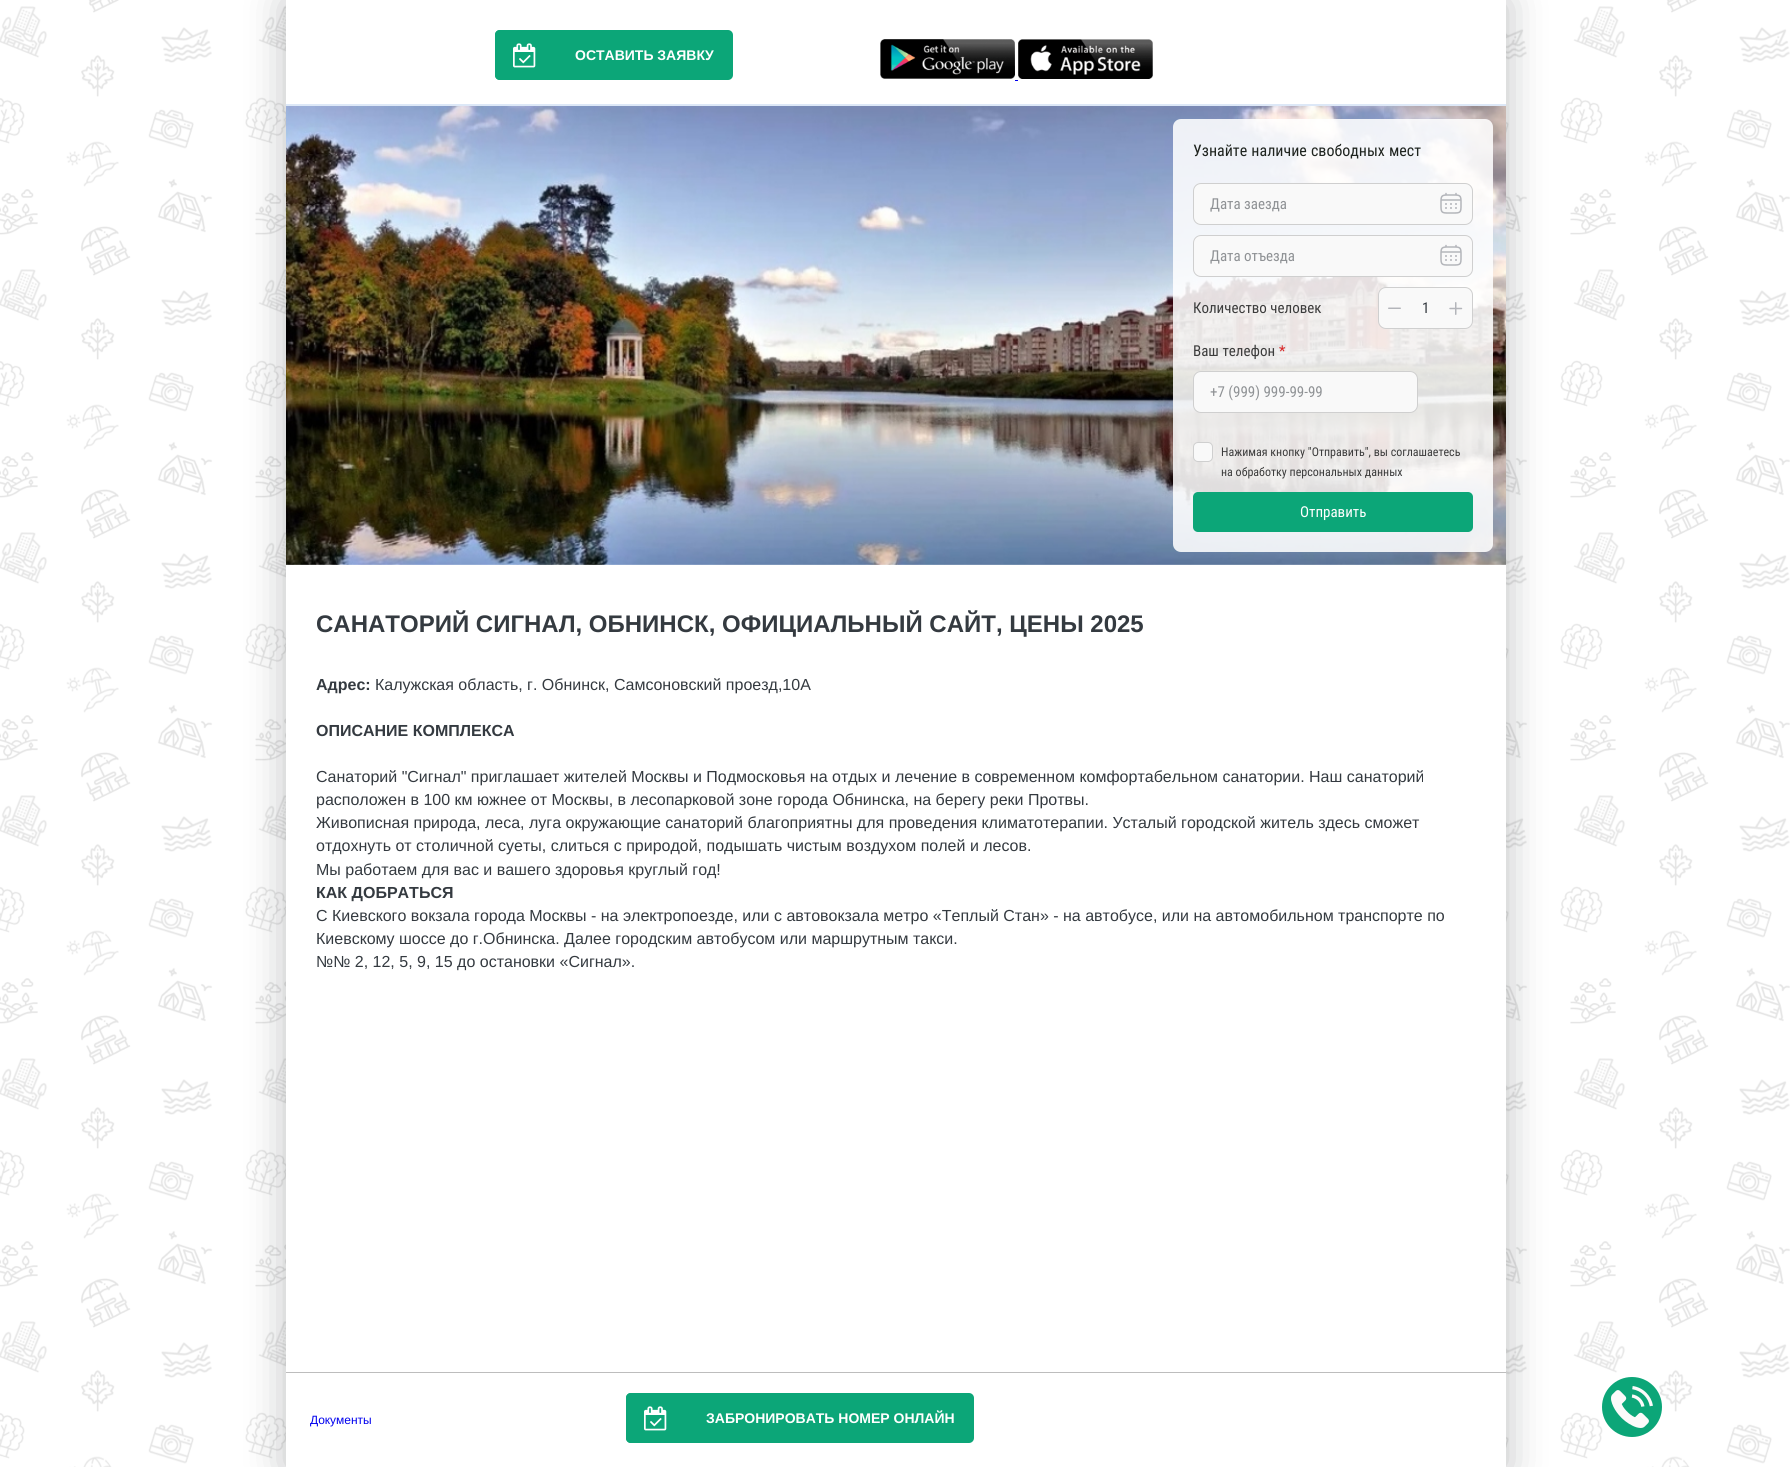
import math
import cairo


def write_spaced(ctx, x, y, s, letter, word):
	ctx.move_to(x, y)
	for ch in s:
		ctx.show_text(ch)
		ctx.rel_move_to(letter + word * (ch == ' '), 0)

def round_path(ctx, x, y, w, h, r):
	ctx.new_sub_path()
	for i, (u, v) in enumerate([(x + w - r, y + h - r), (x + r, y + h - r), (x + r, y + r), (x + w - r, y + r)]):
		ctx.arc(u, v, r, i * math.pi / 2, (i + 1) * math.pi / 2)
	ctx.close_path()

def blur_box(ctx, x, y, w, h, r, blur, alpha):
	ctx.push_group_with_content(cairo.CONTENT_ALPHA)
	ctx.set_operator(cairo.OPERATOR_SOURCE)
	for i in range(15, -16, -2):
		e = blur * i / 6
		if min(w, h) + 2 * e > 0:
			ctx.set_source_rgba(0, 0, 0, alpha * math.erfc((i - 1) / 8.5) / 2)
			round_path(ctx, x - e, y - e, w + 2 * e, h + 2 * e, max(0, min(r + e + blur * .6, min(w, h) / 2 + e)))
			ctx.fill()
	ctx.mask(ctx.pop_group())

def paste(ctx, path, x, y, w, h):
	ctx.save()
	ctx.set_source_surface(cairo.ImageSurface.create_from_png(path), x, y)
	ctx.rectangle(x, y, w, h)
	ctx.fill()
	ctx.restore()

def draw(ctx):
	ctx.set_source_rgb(1, 1, 1)
	ctx.paint()
	paste(ctx, 'media/1.png', 0, 0, 1790, 1467)
	ctx.set_source_rgb(0.129, 0.145, 0.161)
	blur_box(ctx, 286, 2, 1220, 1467, 0, 20, 0.3)
	ctx.set_source_rgb(1, 1, 1)
	ctx.rectangle(286, 0, 1220, 1467)
	ctx.fill()
	ctx.set_source_rgb(0.047, 0.651, 0.471)
	round_path(ctx, 495, 30, 238, 50, 5)
	ctx.fill()
	ctx.new_path()
	ctx.move_to(500, 30)
	ctx.line_to(555, 30)
	ctx.line_to(555, 80)
	ctx.line_to(500, 80)
	ctx.curve_to(497, 80, 495, 78, 495, 75)
	ctx.line_to(495, 35)
	ctx.curve_to(495, 32, 497, 30, 500, 30)
	ctx.close_path()
	ctx.fill()
	paste(ctx, 'media/2.png', 513, 43, 23, 25)
	ctx.select_font_face('Liberation Sans', cairo.FONT_SLANT_NORMAL, cairo.FONT_WEIGHT_BOLD)
	ctx.set_font_size(14)
	ctx.set_source_rgb(1, 1, 1)
	ctx.move_to(575, 60)
	ctx.show_text('ОСТАВИТЬ ЗАЯВКУ')
	paste(ctx, 'media/3.png', 880, 39, 135, 40)
	paste(ctx, 'media/4.png', 1018, 39, 135, 40)
	ctx.set_source_rgb(0, 0, 0.933)
	ctx.rectangle(1015, 80, 3, 1)
	ctx.fill()
	ctx.set_source_rgb(0.867, 0.91, 0.965)
	ctx.rectangle(286, 104, 1220, 2)
	ctx.fill()
	paste(ctx, 'media/5.png', 286, 106, 1220, 459)
	ctx.set_source_rgba(1, 1, 1, 0.87)
	round_path(ctx, 1173, 119, 320, 433, 8)
	ctx.fill()
	ctx.select_font_face('Roboto Condensed')
	ctx.set_font_size(16)
	ctx.set_source_rgb(0.122, 0.141, 0.122)
	write_spaced(ctx, 1193, 156, 'Узнайте наличие свободных мест', 0, 0.5)
	ctx.set_source_rgb(0.976, 0.976, 0.976)
	round_path(ctx, 1193.5, 183.5, 279, 41, 7.5)
	ctx.fill_preserve()
	ctx.set_source_rgb(0.812, 0.812, 0.812)
	ctx.set_line_width(1)
	ctx.stroke()
	ctx.set_font_size(15)
	ctx.set_source_rgb(0.561, 0.573, 0.584)
	ctx.move_to(1210, 209)
	ctx.show_text('Дата заезда')
	paste(ctx, 'media/6.png', 1440, 192, 22, 22)
	ctx.set_source_rgb(0.976, 0.976, 0.976)
	round_path(ctx, 1193.5, 235.5, 279, 41, 7.5)
	ctx.fill_preserve()
	ctx.set_source_rgb(0.812, 0.812, 0.812)
	ctx.stroke()
	ctx.set_source_rgb(0.561, 0.573, 0.584)
	ctx.move_to(1210, 261)
	ctx.show_text('Дата отъезда')
	paste(ctx, 'media/6.png', 1440, 244, 22, 22)
	ctx.set_source_rgb(0.235, 0.235, 0.235)
	ctx.move_to(1193, 313)
	ctx.show_text('Количество человек')
	ctx.set_source_rgb(0.976, 0.976, 0.976)
	round_path(ctx, 1378.5, 287.5, 94, 41, 7.5)
	ctx.fill_preserve()
	ctx.set_source_rgb(0.812, 0.812, 0.812)
	ctx.stroke()
	paste(ctx, 'media/7.png', 1388, 307, 13, 2)
	ctx.set_source_rgb(0.204, 0.227, 0.251)
	ctx.move_to(1422, 313)
	ctx.show_text('1')
	paste(ctx, 'media/8.png', 1449, 302, 14, 13)
	ctx.set_source_rgb(0.235, 0.235, 0.235)
	ctx.move_to(1193, 356)
	ctx.show_text('Ваш телефон')
	ctx.set_source_rgb(0.847, 0.141, 0.141)
	ctx.move_to(1279, 356)
	ctx.show_text('*')
	ctx.set_source_rgb(0.976, 0.976, 0.976)
	round_path(ctx, 1193.5, 371.5, 224, 41, 7.5)
	ctx.fill_preserve()
	ctx.set_source_rgb(0.812, 0.812, 0.812)
	ctx.stroke()
	ctx.set_source_rgb(0.561, 0.573, 0.584)
	ctx.move_to(1210, 397)
	ctx.show_text('+7 (999) 999-99-99')
	ctx.set_source_rgb(0.976, 0.976, 0.976)
	round_path(ctx, 1193.5, 442.5, 19, 19, 4.5)
	ctx.fill_preserve()
	ctx.set_source_rgb(0.812, 0.812, 0.812)
	ctx.stroke()
	ctx.set_font_size(12)
	ctx.set_source_rgb(0.235, 0.235, 0.235)
	ctx.move_to(1221, 456)
	ctx.show_text('Нажимая кнопку "Отправить", вы соглашаетесь')
	ctx.move_to(1221, 476)
	ctx.show_text('на обработку персональных данных')
	ctx.set_source_rgb(0.047, 0.651, 0.471)
	round_path(ctx, 1193, 492, 280, 40, 5)
	ctx.fill()
	ctx.set_font_size(15)
	ctx.set_source_rgb(1, 1, 1)
	ctx.move_to(1300, 517)
	ctx.show_text('Отправить')
	ctx.select_font_face('Liberation Sans', cairo.FONT_SLANT_NORMAL, cairo.FONT_WEIGHT_BOLD)
	ctx.set_font_size(24)
	ctx.set_source_rgb(0.204, 0.227, 0.251)
	ctx.move_to(316, 632)
	ctx.show_text('САНАТОРИЙ СИГНАЛ, ОБНИНСК, ОФИЦИАЛЬНЫЙ САЙТ, ЦЕНЫ 2025')
	ctx.set_font_size(16)
	ctx.move_to(316, 690)
	ctx.show_text('Адрес:')
	ctx.select_font_face('Liberation Sans')
	ctx.move_to(375, 690)
	ctx.show_text('Калужская область, г. Обнинск, Самсоновский проезд,10А')
	ctx.select_font_face('Liberation Sans', cairo.FONT_SLANT_NORMAL, cairo.FONT_WEIGHT_BOLD)
	ctx.move_to(316, 736)
	ctx.show_text('ОПИСАНИЕ КОМПЛЕКСА')
	ctx.select_font_face('Liberation Sans')
	for x, y, s in [
		(316, 782, 'Санаторий "Сигнал" приглашает жителей Москвы и Подмосковья на отдых и лечение в современном комфортабельном санатории. Наш санаторий'),
		(316, 805, 'расположен в 100 км южнее от Москвы, в лесопарковой зоне города Обнинска, на берегу реки Протвы.'),
		(316, 828, 'Живописная природа, леса, луга окружающие санаторий благоприятны для проведения климатотерапии. Усталый городской житель здесь сможет'),
		(316, 851, 'отдохнуть от столичной суеты, слиться с природой, подышать чистым воздухом полей и лесов.'),
		(316, 875, 'Мы работаем для вас и вашего здоровья круглый год!'),
	]:
		ctx.move_to(x, y)
		ctx.show_text(s)
	ctx.select_font_face('Liberation Sans', cairo.FONT_SLANT_NORMAL, cairo.FONT_WEIGHT_BOLD)
	ctx.move_to(316, 898)
	ctx.show_text('КАК ДОБРАТЬСЯ')
	ctx.select_font_face('Liberation Sans')
	for x, y, s in [
		(316, 921, 'С Киевского вокзала города Москвы - на электропоезде, или с автовокзала метро «Теплый Стан» - на автобусе, или на автомобильном транспорте по'),
		(316, 944, 'Киевскому шоссе до г.Обнинска. Далее городским автобусом или маршрутным такси.'),
		(316, 967, '№№ 2, 12, 5, 9, 15 до остановки «Сигнал».'),
	]:
		ctx.move_to(x, y)
		ctx.show_text(s)
	ctx.set_source_rgb(0.741, 0.741, 0.741)
	ctx.rectangle(286, 1372, 1220, 1)
	ctx.fill()
	ctx.set_font_size(12)
	ctx.set_source_rgb(0, 0, 0.933)
	ctx.move_to(310, 1424)
	ctx.show_text('Документы')
	ctx.set_source_rgb(0.047, 0.651, 0.471)
	round_path(ctx, 626, 1393, 348, 50, 5)
	ctx.fill()
	ctx.new_path()
	ctx.move_to(631, 1393)
	ctx.line_to(686, 1393)
	ctx.line_to(686, 1443)
	ctx.line_to(631, 1443)
	ctx.curve_to(628, 1443, 626, 1441, 626, 1438)
	ctx.line_to(626, 1398)
	ctx.curve_to(626, 1395, 628, 1393, 631, 1393)
	ctx.close_path()
	ctx.fill()
	paste(ctx, 'media/2.png', 644, 1406, 23, 25)
	ctx.select_font_face('Liberation Sans', cairo.FONT_SLANT_NORMAL, cairo.FONT_WEIGHT_BOLD)
	ctx.set_font_size(14)
	ctx.set_source_rgb(1, 1, 1)
	ctx.move_to(706, 1423)
	ctx.show_text('ЗАБРОНИРОВАТЬ НОМЕР ОНЛАЙН')
	ctx.set_source_rgb(0.047, 0.651, 0.471)
	ctx.new_path()
	ctx.arc(1632, 1407, 30, 0, 2 * math.pi)
	ctx.fill()
	paste(ctx, 'media/9.png', 1611, 1386, 42, 42)


surface = cairo.ImageSurface(cairo.FORMAT_RGB24, 1792, 1467)
ctx = cairo.Context(surface)
options = cairo.FontOptions()
options.set_hint_metrics(cairo.HINT_METRICS_OFF)
options.set_hint_style(cairo.HINT_STYLE_NONE)
ctx.set_font_options(options)
ctx.set_miter_limit(4)
draw(ctx)
surface.write_to_png('image.png')
